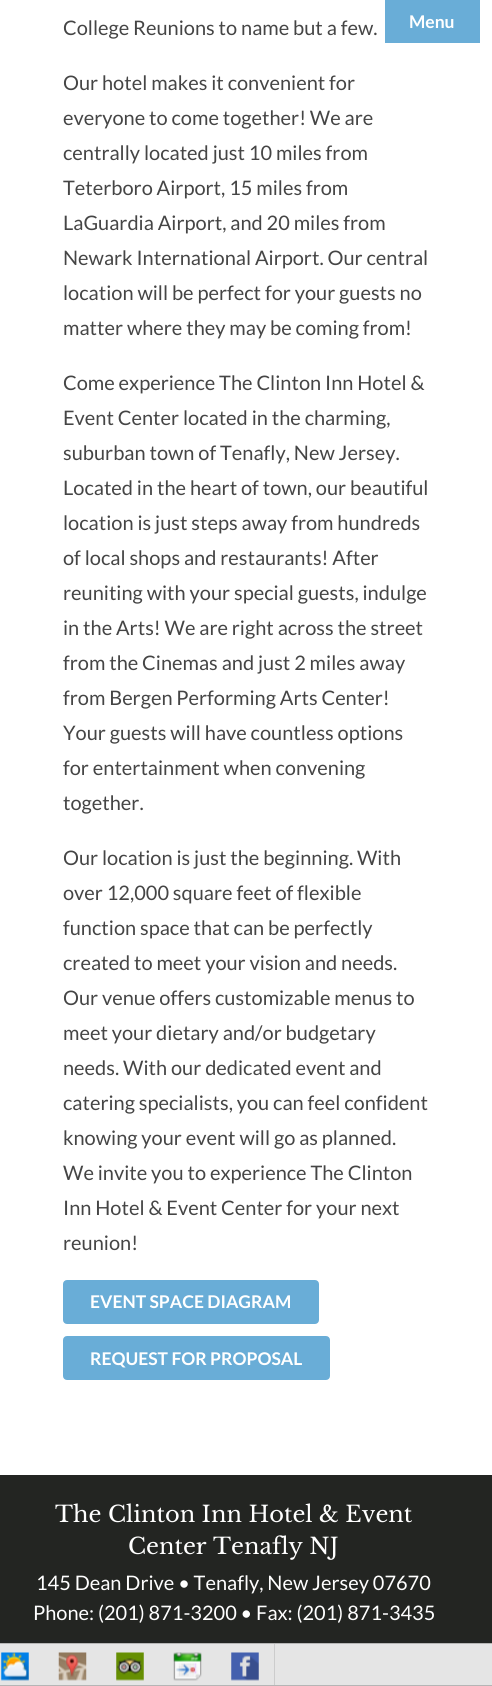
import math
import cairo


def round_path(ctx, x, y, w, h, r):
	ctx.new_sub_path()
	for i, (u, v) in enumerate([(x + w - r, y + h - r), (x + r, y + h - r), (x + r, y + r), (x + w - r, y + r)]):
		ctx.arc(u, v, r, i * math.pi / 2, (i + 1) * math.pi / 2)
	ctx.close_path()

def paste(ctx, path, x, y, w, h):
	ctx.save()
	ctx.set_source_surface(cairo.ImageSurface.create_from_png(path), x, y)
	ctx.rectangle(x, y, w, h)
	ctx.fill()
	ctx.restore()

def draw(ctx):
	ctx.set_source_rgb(1, 1, 1)
	ctx.paint()
	ctx.select_font_face('Lato')
	ctx.set_font_size(20)
	ctx.set_source_rgb(0.271, 0.271, 0.271)
	for x, y, s in [
		(63, 35, 'College Reunions to name but a few.'),
		(63, 90, 'Our hotel makes it convenient for'),
		(63, 125, 'everyone to come together! We are'),
		(63, 160, 'centrally located just 10 miles from'),
		(63, 195, 'Teterboro Airport, 15 miles from'),
		(63, 230, 'LaGuardia Airport, and 20 miles from'),
		(63, 265, 'Newark International Airport. Our central'),
		(63, 300, 'location will be perfect for your guests no'),
		(63, 335, 'matter where they may be coming from!'),
		(63, 390, 'Come experience The Clinton Inn Hotel &'),
		(63, 425, 'Event Center located in the charming,'),
		(63, 460, 'suburban town of Tenafly, New Jersey.'),
		(63, 495, 'Located in the heart of town, our beautiful'),
		(63, 530, 'location is just steps away from hundreds'),
		(63, 565, 'of local shops and restaurants! After'),
		(63, 600, 'reuniting with your special guests, indulge'),
		(63, 635, 'in the Arts! We are right across the street'),
		(63, 670, 'from the Cinemas and just 2 miles away'),
		(63, 705, 'from Bergen Performing Arts Center!'),
		(63, 740, 'Your guests will have countless options'),
		(63, 775, 'for entertainment when convening'),
		(63, 810, 'together.'),
		(63, 865, 'Our location is just the beginning. With'),
		(63, 900, 'over 12,000 square feet of flexible'),
		(63, 935, 'function space that can be perfectly'),
		(63, 970, 'created to meet your vision and needs.'),
		(63, 1005, 'Our venue offers customizable menus to'),
		(63, 1040, 'meet your dietary and/or budgetary'),
		(63, 1075, 'needs. With our dedicated event and'),
		(63, 1110, 'catering specialists, you can feel confident'),
		(63, 1145, 'knowing your event will go as planned.'),
		(63, 1180, 'We invite you to experience The Clinton'),
		(63, 1215, 'Inn Hotel & Event Center for your next'),
		(63, 1250, 'reunion!'),
	]:
		ctx.move_to(x, y)
		ctx.show_text(s)
	ctx.set_source_rgb(0.412, 0.678, 0.843)
	round_path(ctx, 64.5, 1281.5, 253, 41, 2.5)
	ctx.fill_preserve()
	ctx.set_line_width(3)
	ctx.stroke()
	ctx.select_font_face('Lato', cairo.FONT_SLANT_NORMAL, cairo.FONT_WEIGHT_BOLD)
	ctx.set_font_size(17.5)
	ctx.set_source_rgb(1, 1, 1)
	ctx.move_to(90, 1308)
	ctx.show_text('EVENT SPACE DIAGRAM')
	ctx.set_source_rgb(0.412, 0.678, 0.843)
	round_path(ctx, 64.5, 1337.5, 264, 41, 2.5)
	ctx.fill_preserve()
	ctx.stroke()
	ctx.set_source_rgb(1, 1, 1)
	ctx.move_to(90, 1365)
	ctx.show_text('REQUEST FOR PROPOSAL')
	ctx.set_source_rgb(0.412, 0.678, 0.843)
	ctx.rectangle(385, 0, 95, 43)
	ctx.fill()
	ctx.set_source_rgb(1, 1, 1)
	ctx.move_to(409, 28)
	ctx.show_text('Menu')
	ctx.set_source_rgb(0.137, 0.145, 0.133)
	ctx.rectangle(0, 1475, 492, 168)
	ctx.fill()
	ctx.select_font_face('Libre Baskerville')
	ctx.set_font_size(22.5)
	ctx.set_source_rgb(1, 1, 1)
	ctx.move_to(55, 1522)
	ctx.show_text('The Clinton Inn Hotel & Event')
	ctx.move_to(128, 1554)
	ctx.show_text('Center Tenafly NJ')
	ctx.select_font_face('Lato')
	ctx.set_font_size(20)
	ctx.move_to(36, 1590)
	ctx.show_text('145 Dean Drive • Tenafly, New Jersey 07670')
	ctx.move_to(33, 1620)
	ctx.show_text('Phone: (201) 871-3200 • Fax: (201) 871-3435')
	ctx.set_source_rgb(0.898, 0.898, 0.898)
	ctx.rectangle(-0.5, 1643.5, 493, 42)
	ctx.fill_preserve()
	ctx.set_source_rgb(0.71, 0.71, 0.71)
	ctx.set_line_width(1)
	ctx.stroke()
	paste(ctx, 'media/1.png', 1, 1652, 28, 29)
	paste(ctx, 'media/2.png', 58, 1652, 29, 29)
	paste(ctx, 'media/3.png', 116, 1652, 28, 29)
	paste(ctx, 'media/4.png', 173, 1652, 29, 29)
	paste(ctx, 'media/5.png', 231, 1652, 28, 29)
	ctx.set_source_rgb(0.8, 0.8, 0.8)
	ctx.rectangle(274, 1644, 1, 41)
	ctx.fill()


surface = cairo.ImageSurface(cairo.FORMAT_RGB24, 492, 1686)
ctx = cairo.Context(surface)
options = cairo.FontOptions()
options.set_hint_metrics(cairo.HINT_METRICS_OFF)
options.set_hint_style(cairo.HINT_STYLE_NONE)
ctx.set_font_options(options)
ctx.set_miter_limit(4)
draw(ctx)
surface.write_to_png('image.png')
